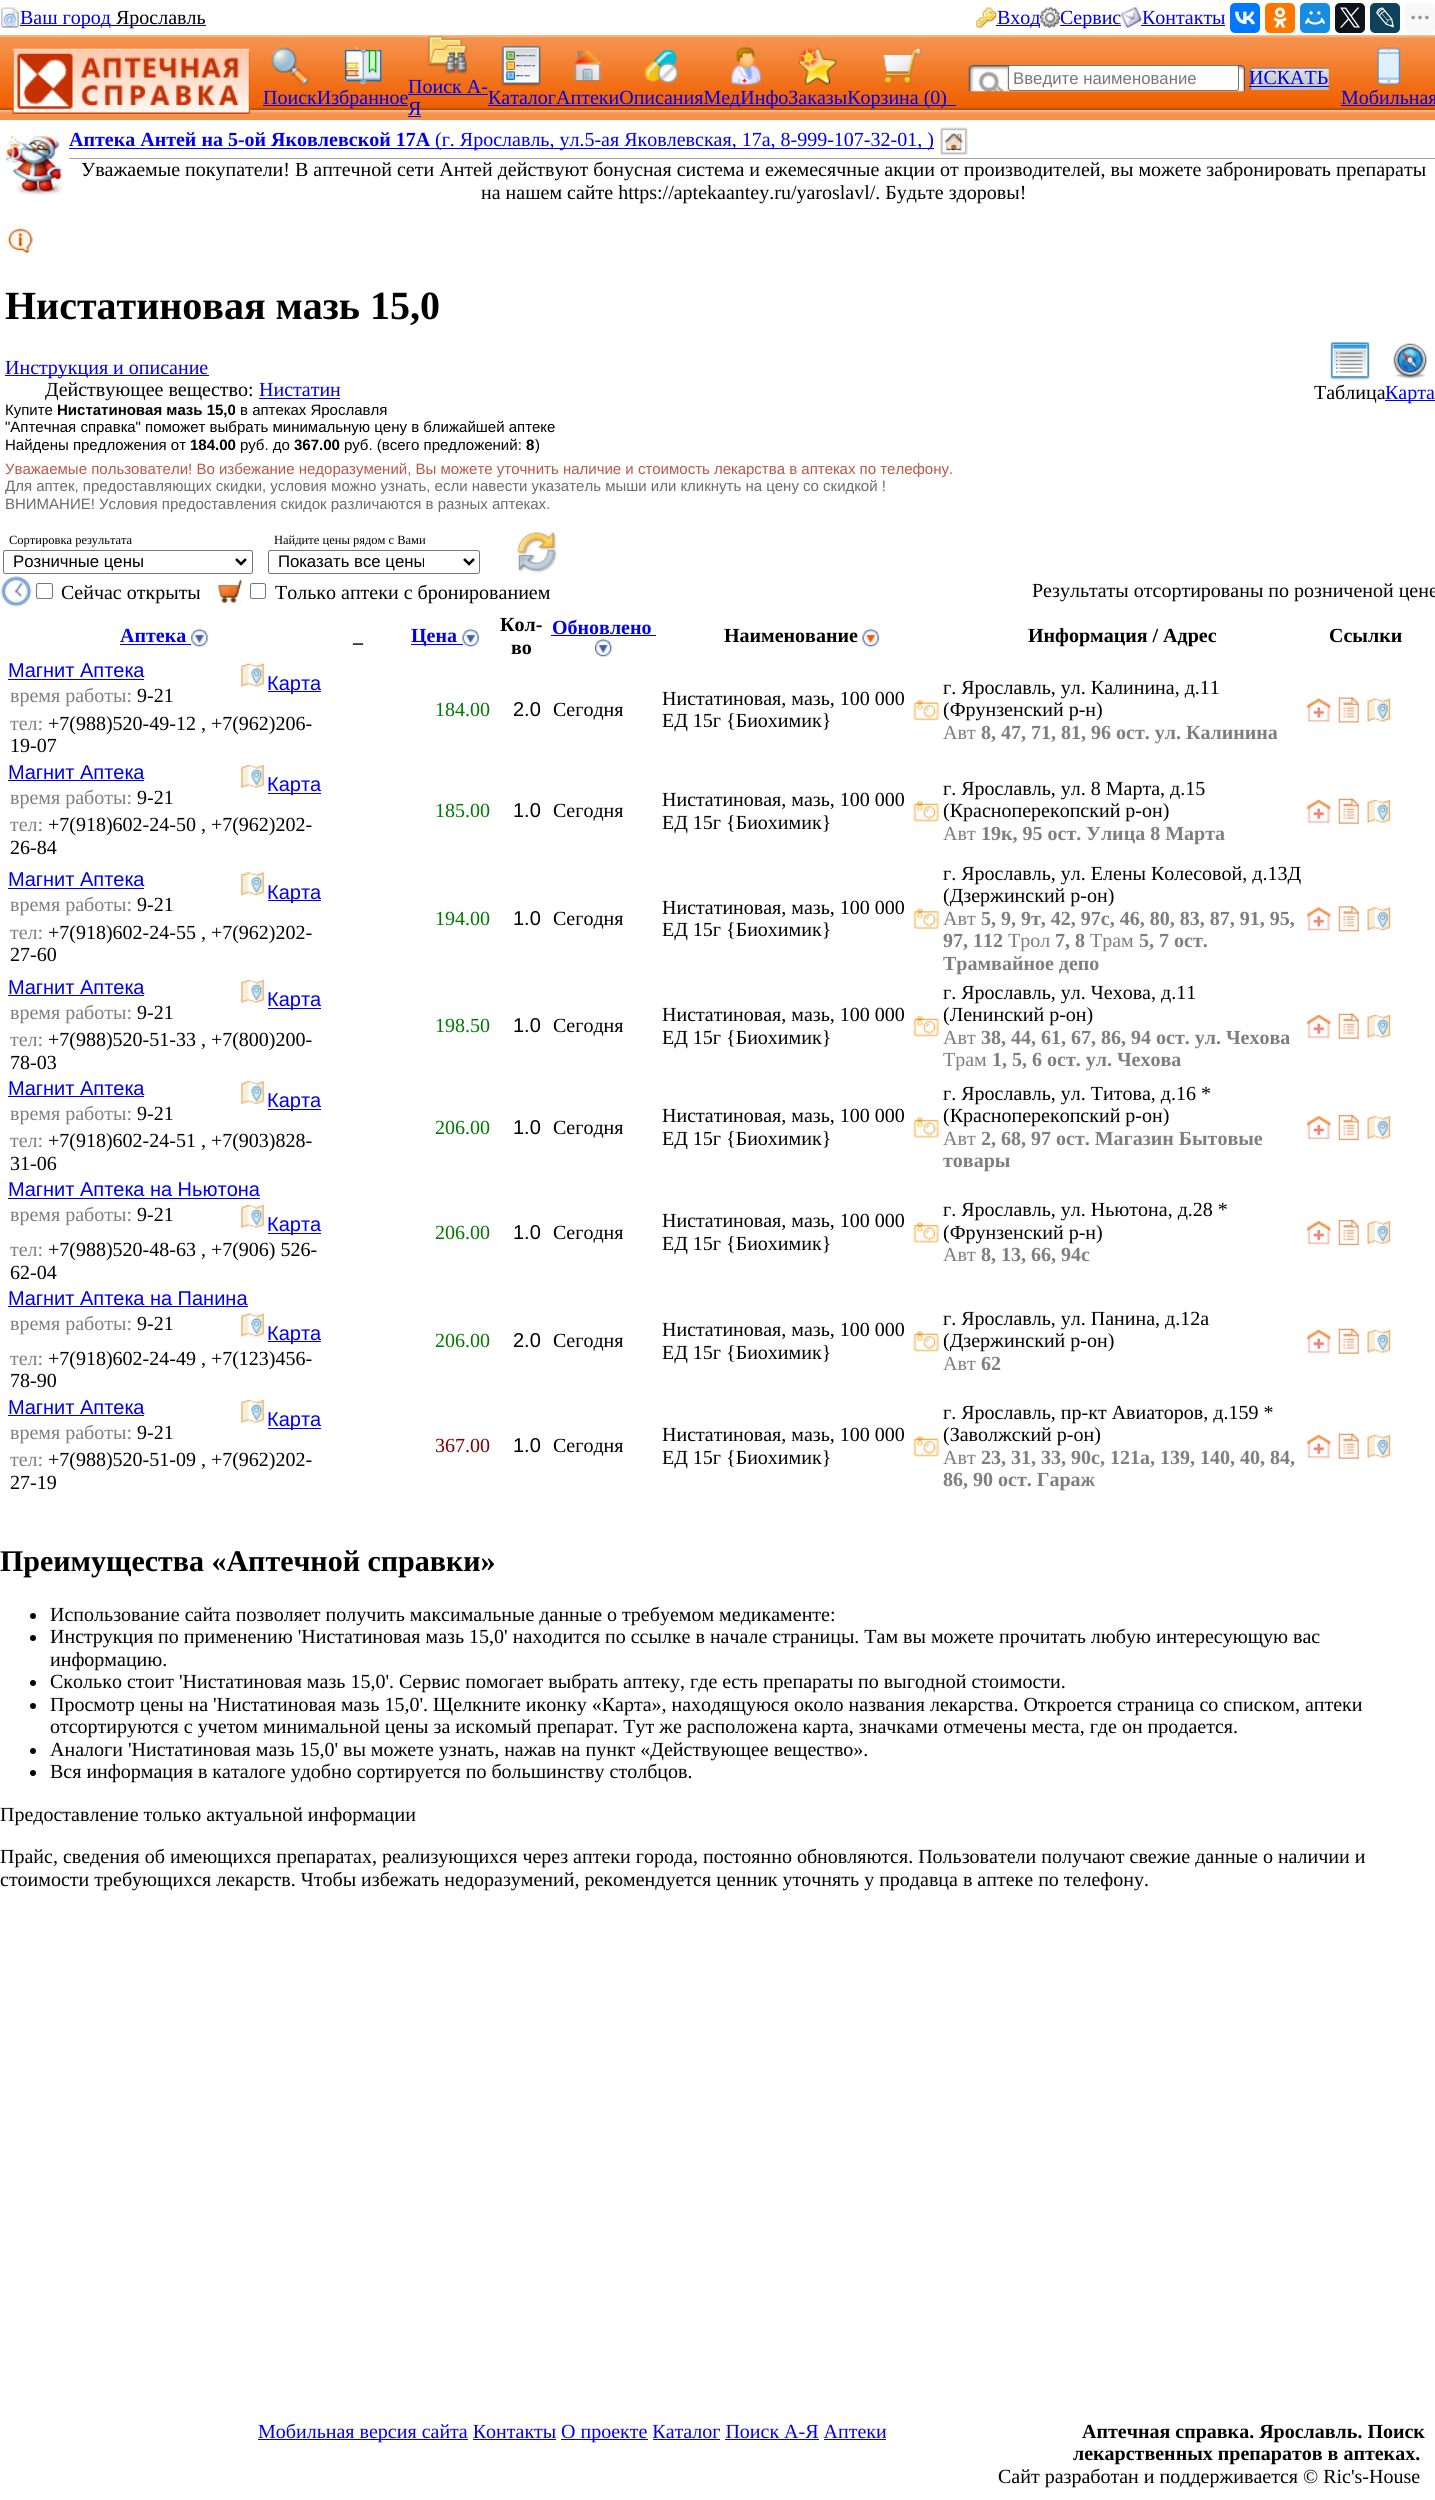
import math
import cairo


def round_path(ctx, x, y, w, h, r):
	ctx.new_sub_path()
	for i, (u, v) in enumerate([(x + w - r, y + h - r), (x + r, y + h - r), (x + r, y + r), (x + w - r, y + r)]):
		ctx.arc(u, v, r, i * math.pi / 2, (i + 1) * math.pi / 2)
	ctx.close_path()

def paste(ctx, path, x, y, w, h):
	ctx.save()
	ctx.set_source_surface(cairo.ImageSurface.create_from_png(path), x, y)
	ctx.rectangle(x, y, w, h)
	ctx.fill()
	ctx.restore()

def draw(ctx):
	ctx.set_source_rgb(1, 1, 1)
	ctx.paint()
	paste(ctx, 'media/1.png', 1, 7, 18, 21)
	ctx.set_source_rgb(0, 0, 0.933)
	ctx.rectangle(20, 25, 186, 1)
	ctx.fill()
	ctx.select_font_face('Liberation Serif')
	ctx.set_font_size(20)
	ctx.move_to(20, 24)
	ctx.show_text('Ваш город')
	ctx.set_source_rgb(0, 0, 0)
	ctx.move_to(116, 24)
	ctx.show_text('Ярославль')
	paste(ctx, 'media/2.png', 976, 7, 21, 21)
	ctx.set_source_rgb(0, 0, 0.933)
	ctx.rectangle(996, 25, 44, 1)
	ctx.fill()
	ctx.move_to(997, 24)
	ctx.show_text('Вход')
	paste(ctx, 'media/3.png', 1040, 7, 20, 21)
	ctx.rectangle(1060, 25, 61, 1)
	ctx.fill()
	ctx.move_to(1060, 24)
	ctx.show_text('Сервис')
	paste(ctx, 'media/4.png', 1121, 7, 21, 21)
	ctx.move_to(1142, 24)
	ctx.show_text('Контакты')
	ctx.rectangle(1141, 25, 84, 1)
	ctx.fill()
	ctx.set_source_rgb(0, 0.467, 1)
	round_path(ctx, 1230, 3, 30, 30, 5)
	ctx.fill()
	paste(ctx, 'media/5.png', 1235, 11, 20, 14)
	ctx.set_source_rgb(1, 0.467, 0)
	round_path(ctx, 1265, 3, 30, 30, 5)
	ctx.fill()
	paste(ctx, 'media/6.png', 1273, 7, 14, 21)
	ctx.set_source_rgb(0.086, 0.553, 0.886)
	round_path(ctx, 1300, 3, 30, 30, 5)
	ctx.fill()
	paste(ctx, 'media/7.png', 1305, 11, 20, 14)
	ctx.set_source_rgb(0.059, 0.078, 0.098)
	round_path(ctx, 1335, 3, 30, 30, 5)
	ctx.fill()
	paste(ctx, 'media/8.png', 1340, 7, 20, 21)
	ctx.set_source_rgb(0.051, 0.259, 0.353)
	round_path(ctx, 1370, 3, 30, 30, 5)
	ctx.fill()
	paste(ctx, 'media/9.png', 1376, 7, 18, 21)
	ctx.set_source_rgb(0.969, 0.969, 0.969)
	round_path(ctx, 1405, 3, 30, 30, 5)
	ctx.fill()
	paste(ctx, 'media/10.png', 1411, 15, 18, 5)
	paste(ctx, 'media/11.png', 0, 35, 1435, 85)
	paste(ctx, 'media/12.png', 12, 48, 238, 66)
	paste(ctx, 'media/13.png', 344, 47, 38, 37)
	paste(ctx, 'media/14.png', 427, 36, 41, 38)
	ctx.set_source_rgb(0, 0, 0.933)
	ctx.move_to(408, 93)
	ctx.show_text('Поиск А-')
	ctx.rectangle(408, 94, 80, 1)
	ctx.fill()
	ctx.move_to(408, 115)
	ctx.show_text('Я')
	ctx.rectangle(408, 116, 13, 1)
	ctx.fill()
	paste(ctx, 'media/15.png', 572, 49, 32, 33)
	paste(ctx, 'media/16.png', 644, 49, 35, 35)
	paste(ctx, 'media/17.png', 731, 47, 31, 39)
	paste(ctx, 'media/18.png', 798, 47, 39, 39)
	paste(ctx, 'media/19.png', 882, 47, 40, 38)
	paste(ctx, 'media/20.png', 968, 65, 7, 27)
	paste(ctx, 'media/21.png', 975, 65, 33, 27)
	paste(ctx, 'media/22.png', 1007, 65, 232, 27)
	paste(ctx, 'media/23.png', 1238, 65, 7, 27)
	ctx.set_source_rgb(1, 1, 1)
	round_path(ctx, 1008.5, 65.5, 230, 25, 2)
	ctx.fill_preserve()
	ctx.set_source_rgb(0.463, 0.463, 0.463)
	ctx.set_line_width(1)
	ctx.stroke()
	ctx.select_font_face('Liberation Sans')
	ctx.set_font_size(16.75)
	ctx.set_source_rgb(0.467, 0.467, 0.467)
	ctx.move_to(1013, 84)
	ctx.show_text('Введите наименование')
	paste(ctx, 'media/24.png', 1248, 67, 81, 23)
	ctx.select_font_face('Liberation Serif')
	ctx.set_font_size(20)
	ctx.set_source_rgb(0, 0, 0.933)
	ctx.move_to(1249, 84)
	ctx.show_text('ИСКАТЬ')
	ctx.rectangle(1249, 86, 80, 1)
	ctx.fill()
	paste(ctx, 'media/25.png', 271, 47, 38, 39)
	ctx.rectangle(263, 105, 145, 1)
	ctx.fill()
	ctx.move_to(263, 104)
	ctx.show_text('ПоискИзбранное')
	paste(ctx, 'media/26.png', 501, 46, 40, 40)
	ctx.rectangle(488, 105, 468, 1)
	ctx.fill()
	ctx.move_to(488, 104)
	ctx.show_text('КаталогАптекиОписанияМедИнфоЗаказыКорзина (0)')
	paste(ctx, 'media/27.png', 1377, 47, 24, 39)
	ctx.move_to(1341, 104)
	ctx.show_text('Мобильная')
	ctx.rectangle(1341, 105, 94, 1)
	ctx.fill()
	paste(ctx, 'media/28.png', 5, 135, 58, 60)
	ctx.select_font_face('Liberation Serif', cairo.FONT_SLANT_NORMAL, cairo.FONT_WEIGHT_BOLD)
	ctx.move_to(69, 146)
	ctx.show_text('Аптека Антей на 5-ой Яковлевской 17А')
	ctx.rectangle(69, 148, 865, 1)
	ctx.fill()
	ctx.select_font_face('Liberation Serif')
	ctx.move_to(435, 146)
	ctx.show_text('(г. Ярославль, ул.5-ая Яковлевская, 17а, 8-999-107-32-01, )')
	paste(ctx, 'media/29.png', 940, 127, 28, 28)
	ctx.set_source_rgb(0.627, 0.627, 0.627)
	ctx.rectangle(69, 158, 1366, 1)
	ctx.fill()
	ctx.set_source_rgb(0, 0, 0)
	ctx.move_to(81, 176)
	ctx.show_text('Уважаемые покупатели! В аптечной сети Антей действуют бонусная система и ежемесячные акции от производителей, вы можете забронировать препараты')
	ctx.move_to(481, 199)
	ctx.show_text('на нашем сайте https://aptekaantey.ru/yaroslavl/. Будьте здоровы!')
	paste(ctx, 'media/30.png', 7, 228, 26, 25)
	ctx.select_font_face('Liberation Serif', cairo.FONT_SLANT_NORMAL, cairo.FONT_WEIGHT_BOLD)
	ctx.set_font_size(40)
	ctx.move_to(5, 319)
	ctx.show_text('Нистатиновая мазь 15,0')
	ctx.set_source_rgb(0, 0, 0.933)
	ctx.rectangle(5, 375, 204, 1)
	ctx.fill()
	ctx.select_font_face('Liberation Serif')
	ctx.set_font_size(20)
	ctx.move_to(5, 374)
	ctx.show_text('Инструкция и описание')
	ctx.set_source_rgb(0, 0, 0)
	ctx.move_to(45, 396)
	ctx.show_text('Действующее вещество:')
	ctx.set_source_rgb(0, 0, 0.933)
	ctx.move_to(259, 396)
	ctx.show_text('Нистатин')
	ctx.rectangle(259, 398, 81, 1)
	ctx.fill()
	ctx.select_font_face('Liberation Sans')
	ctx.set_font_size(15)
	ctx.set_source_rgb(0, 0, 0)
	ctx.move_to(5, 415)
	ctx.show_text('Купите')
	ctx.select_font_face('Liberation Sans', cairo.FONT_SLANT_NORMAL, cairo.FONT_WEIGHT_BOLD)
	ctx.move_to(57, 415)
	ctx.show_text('Нистатиновая мазь 15,0')
	ctx.select_font_face('Liberation Sans')
	for x, y, s in [
		(240, 415, 'в аптеках Ярославля'),
		(5, 432, '"Аптечная справка" поможет выбрать минимальную цену в ближайшей аптеке'),
		(5, 450, 'Найдены предложения от'),
	]:
		ctx.move_to(x, y)
		ctx.show_text(s)
	ctx.select_font_face('Liberation Sans', cairo.FONT_SLANT_NORMAL, cairo.FONT_WEIGHT_BOLD)
	ctx.move_to(190, 450)
	ctx.show_text('184.00')
	ctx.select_font_face('Liberation Sans')
	ctx.move_to(240, 450)
	ctx.show_text('руб. до')
	ctx.select_font_face('Liberation Sans', cairo.FONT_SLANT_NORMAL, cairo.FONT_WEIGHT_BOLD)
	ctx.move_to(294, 450)
	ctx.show_text('367.00')
	ctx.select_font_face('Liberation Sans')
	ctx.move_to(344, 450)
	ctx.show_text('руб. (всего предложений:')
	ctx.select_font_face('Liberation Sans', cairo.FONT_SLANT_NORMAL, cairo.FONT_WEIGHT_BOLD)
	ctx.move_to(526, 450)
	ctx.show_text('8')
	ctx.select_font_face('Liberation Sans')
	ctx.move_to(535, 450)
	ctx.show_text(')')
	ctx.set_source_rgb(0.722, 0.345, 0.278)
	ctx.move_to(5, 474)
	ctx.show_text('Уважаемые пользователи! Во избежание недоразумений, Вы можете уточнить наличие и стоимость лекарства в аптеках по телефону.')
	ctx.set_source_rgb(0.42, 0.42, 0.42)
	ctx.move_to(5, 491)
	ctx.show_text('Для аптек, предоставляющих скидки, условия можно узнать, если навести указатель мыши или кликнуть на цену со скидкой !')
	ctx.move_to(5, 509)
	ctx.show_text('ВНИМАНИЕ! Условия предоставления скидок различаются в разных аптеках.')
	paste(ctx, 'media/31.png', 1330, 342, 40, 38)
	ctx.select_font_face('Liberation Serif')
	ctx.set_font_size(20)
	ctx.set_source_rgb(0, 0, 0)
	ctx.move_to(1314, 399)
	ctx.show_text('Таблица')
	paste(ctx, 'media/32.png', 1393, 343, 34, 36)
	ctx.set_source_rgb(0, 0, 0.933)
	ctx.rectangle(1385, 400, 50, 1)
	ctx.fill()
	ctx.move_to(1385, 399)
	ctx.show_text('Карта')
	ctx.set_font_size(12.5)
	ctx.set_source_rgb(0, 0, 0)
	ctx.move_to(9, 544)
	ctx.show_text('Сортировка результата')
	round_path(ctx, 3.5, 550.5, 249, 23, 2)
	ctx.set_source_rgb(0.463, 0.463, 0.463)
	ctx.stroke()
	ctx.new_path()
	ctx.move_to(236, 559)
	ctx.line_to(241, 564)
	ctx.line_to(246, 559)
	ctx.set_source_rgb(0, 0, 0)
	ctx.set_line_width(2.5)
	ctx.stroke()
	ctx.select_font_face('Liberation Sans')
	ctx.set_font_size(16.75)
	ctx.move_to(13, 567)
	ctx.show_text('Розничные цены')
	ctx.select_font_face('Liberation Serif')
	ctx.set_font_size(12.5)
	ctx.move_to(274, 544)
	ctx.show_text('Найдите цены рядом с Вами')
	round_path(ctx, 268.5, 550.5, 211, 23, 2)
	ctx.set_source_rgb(0.463, 0.463, 0.463)
	ctx.set_line_width(1)
	ctx.stroke()
	ctx.new_path()
	ctx.move_to(464, 559)
	ctx.line_to(469, 564)
	ctx.line_to(474, 559)
	ctx.set_source_rgb(0, 0, 0)
	ctx.set_line_width(2.5)
	ctx.stroke()
	ctx.select_font_face('Liberation Sans')
	ctx.set_font_size(16.75)
	ctx.move_to(278, 567)
	ctx.show_text('Показать все цены')
	paste(ctx, 'media/33.png', 517, 532, 40, 41)
	paste(ctx, 'media/34.png', 1, 576, 31, 31)
	round_path(ctx, 36.5, 583.5, 16, 15, 2)
	ctx.set_source_rgb(0.463, 0.463, 0.463)
	ctx.set_line_width(1)
	ctx.stroke()
	ctx.select_font_face('Liberation Serif')
	ctx.set_font_size(20)
	ctx.set_source_rgb(0, 0, 0)
	ctx.move_to(61, 599)
	ctx.show_text('Сейчас открыты')
	paste(ctx, 'media/35.png', 217, 579, 25, 25)
	round_path(ctx, 250.5, 583.5, 15, 15, 2)
	ctx.set_source_rgb(0.463, 0.463, 0.463)
	ctx.stroke()
	ctx.set_source_rgb(0, 0, 0)
	ctx.move_to(275, 599)
	ctx.show_text('Только аптеки с бронированием')
	ctx.move_to(1032, 597)
	ctx.show_text('Результаты отсортированы по розниченой цене')
	ctx.select_font_face('Liberation Serif', cairo.FONT_SLANT_NORMAL, cairo.FONT_WEIGHT_BOLD)
	ctx.set_source_rgb(0, 0, 0.933)
	ctx.move_to(120, 642)
	ctx.show_text('Аптека')
	ctx.rectangle(120, 644, 71, 1)
	ctx.fill()
	paste(ctx, 'media/36.png', 191, 628, 18, 19)
	ctx.rectangle(411, 644, 52, 1)
	ctx.fill()
	ctx.move_to(411, 642)
	ctx.show_text('Цена')
	paste(ctx, 'media/37.png', 462, 628, 18, 19)
	ctx.set_source_rgb(0, 0, 0)
	ctx.move_to(500, 631)
	ctx.show_text('Кол-')
	ctx.move_to(511, 654)
	ctx.show_text('во')
	ctx.set_source_rgb(0, 0, 0.933)
	ctx.move_to(552, 634)
	ctx.show_text('Обновлено')
	ctx.rectangle(551, 635, 105, 1)
	ctx.fill()
	paste(ctx, 'media/38.png', 595, 638, 18, 19)
	ctx.set_source_rgb(0, 0, 0)
	ctx.move_to(724, 642)
	ctx.show_text('Наименование')
	paste(ctx, 'media/39.png', 862, 628, 18, 19)
	for x, y, s in [
		(1028, 642, 'Информация / Адрес'),
		(1329, 642, 'Ссылки'),
		(353, 642, '_'),
	]:
		ctx.move_to(x, y)
		ctx.show_text(s)
	ctx.select_font_face('Liberation Sans')
	ctx.set_source_rgb(0, 0, 0.933)
	ctx.move_to(8, 677)
	ctx.show_text('Магнит Аптека')
	ctx.rectangle(8, 679, 136, 1)
	ctx.fill()
	paste(ctx, 'media/40.png', 241, 663, 23, 24)
	ctx.rectangle(268, 691, 53, 1)
	ctx.fill()
	ctx.move_to(267, 690)
	ctx.show_text('Карта')
	ctx.select_font_face('Liberation Serif')
	ctx.set_source_rgb(0.494, 0.494, 0.494)
	ctx.move_to(10, 702)
	ctx.show_text('время работы:')
	ctx.set_source_rgb(0, 0, 0)
	ctx.move_to(137, 702)
	ctx.show_text('9-21')
	ctx.set_source_rgb(0.494, 0.494, 0.494)
	ctx.move_to(10, 730)
	ctx.show_text('тел:')
	ctx.set_source_rgb(0, 0, 0)
	ctx.move_to(48, 730)
	ctx.show_text('+7(988)520-49-12 , +7(962)206-')
	ctx.move_to(10, 752)
	ctx.show_text('19-07')
	ctx.set_source_rgb(0, 0.467, 0)
	ctx.move_to(435, 716)
	ctx.show_text('184.00')
	ctx.select_font_face('Liberation Sans')
	ctx.set_source_rgb(0, 0, 0)
	ctx.move_to(513, 716)
	ctx.show_text('2.0')
	ctx.select_font_face('Liberation Serif')
	for x, y, s in [
		(553, 716, 'Сегодня'),
		(662, 705, 'Нистатиновая, мазь, 100 000'),
		(662, 727, 'ЕД 15г {Биохимик}'),
	]:
		ctx.move_to(x, y)
		ctx.show_text(s)
	paste(ctx, 'media/41.png', 913, 699, 26, 22)
	ctx.move_to(943, 694)
	ctx.show_text('г. Ярославль, ул. Калинина, д.11')
	ctx.move_to(943, 716)
	ctx.show_text('(Фрунзенский р-н)')
	ctx.set_source_rgb(0.494, 0.494, 0.494)
	ctx.move_to(943, 739)
	ctx.show_text('Авт')
	ctx.select_font_face('Liberation Serif', cairo.FONT_SLANT_NORMAL, cairo.FONT_WEIGHT_BOLD)
	ctx.move_to(981, 739)
	ctx.show_text('8, 47, 71, 81, 96 ост. ул. Калинина')
	paste(ctx, 'media/42.png', 1306, 698, 26, 25)
	paste(ctx, 'media/43.png', 1338, 697, 21, 26)
	paste(ctx, 'media/44.png', 1367, 698, 24, 24)
	ctx.select_font_face('Liberation Sans')
	ctx.set_source_rgb(0, 0, 0.933)
	ctx.move_to(8, 779)
	ctx.show_text('Магнит Аптека')
	ctx.rectangle(8, 780, 136, 1)
	ctx.fill()
	paste(ctx, 'media/45.png', 241, 764, 23, 24)
	ctx.rectangle(268, 793, 53, 1)
	ctx.fill()
	ctx.move_to(267, 791)
	ctx.show_text('Карта')
	ctx.select_font_face('Liberation Serif')
	ctx.set_source_rgb(0.494, 0.494, 0.494)
	ctx.move_to(10, 804)
	ctx.show_text('время работы:')
	ctx.set_source_rgb(0, 0, 0)
	ctx.move_to(137, 804)
	ctx.show_text('9-21')
	ctx.set_source_rgb(0.494, 0.494, 0.494)
	ctx.move_to(10, 831)
	ctx.show_text('тел:')
	ctx.set_source_rgb(0, 0, 0)
	ctx.move_to(48, 831)
	ctx.show_text('+7(918)602-24-50 , +7(962)202-')
	ctx.move_to(10, 854)
	ctx.show_text('26-84')
	ctx.set_source_rgb(0, 0.467, 0)
	ctx.move_to(435, 817)
	ctx.show_text('185.00')
	ctx.select_font_face('Liberation Sans')
	ctx.set_source_rgb(0, 0, 0)
	ctx.move_to(513, 817)
	ctx.show_text('1.0')
	ctx.select_font_face('Liberation Serif')
	for x, y, s in [
		(553, 817, 'Сегодня'),
		(662, 806, 'Нистатиновая, мазь, 100 000'),
		(662, 829, 'ЕД 15г {Биохимик}'),
	]:
		ctx.move_to(x, y)
		ctx.show_text(s)
	paste(ctx, 'media/46.png', 913, 801, 26, 21)
	ctx.move_to(943, 795)
	ctx.show_text('г. Ярославль, ул. 8 Марта, д.15')
	ctx.move_to(943, 817)
	ctx.show_text('(Красноперекопский р-он)')
	ctx.set_source_rgb(0.494, 0.494, 0.494)
	ctx.move_to(943, 840)
	ctx.show_text('Авт')
	ctx.select_font_face('Liberation Serif', cairo.FONT_SLANT_NORMAL, cairo.FONT_WEIGHT_BOLD)
	ctx.move_to(981, 840)
	ctx.show_text('19к, 95 ост. Улица 8 Марта')
	paste(ctx, 'media/47.png', 1306, 799, 26, 25)
	paste(ctx, 'media/48.png', 1338, 798, 21, 26)
	paste(ctx, 'media/49.png', 1367, 799, 24, 24)
	ctx.select_font_face('Liberation Sans')
	ctx.set_source_rgb(0, 0, 0.933)
	ctx.move_to(8, 886)
	ctx.show_text('Магнит Аптека')
	ctx.rectangle(8, 888, 136, 1)
	ctx.fill()
	paste(ctx, 'media/50.png', 241, 872, 23, 24)
	ctx.rectangle(268, 900, 53, 1)
	ctx.fill()
	ctx.move_to(267, 899)
	ctx.show_text('Карта')
	ctx.select_font_face('Liberation Serif')
	ctx.set_source_rgb(0.494, 0.494, 0.494)
	ctx.move_to(10, 911)
	ctx.show_text('время работы:')
	ctx.set_source_rgb(0, 0, 0)
	ctx.move_to(137, 911)
	ctx.show_text('9-21')
	ctx.set_source_rgb(0.494, 0.494, 0.494)
	ctx.move_to(10, 939)
	ctx.show_text('тел:')
	ctx.set_source_rgb(0, 0, 0)
	ctx.move_to(48, 939)
	ctx.show_text('+7(918)602-24-55 , +7(962)202-')
	ctx.move_to(10, 961)
	ctx.show_text('27-60')
	ctx.set_source_rgb(0, 0.467, 0)
	ctx.move_to(435, 925)
	ctx.show_text('194.00')
	ctx.select_font_face('Liberation Sans')
	ctx.set_source_rgb(0, 0, 0)
	ctx.move_to(513, 925)
	ctx.show_text('1.0')
	ctx.select_font_face('Liberation Serif')
	for x, y, s in [
		(553, 925, 'Сегодня'),
		(662, 914, 'Нистатиновая, мазь, 100 000'),
		(662, 936, 'ЕД 15г {Биохимик}'),
	]:
		ctx.move_to(x, y)
		ctx.show_text(s)
	paste(ctx, 'media/51.png', 913, 908, 26, 21)
	ctx.move_to(943, 880)
	ctx.show_text('г. Ярославль, ул. Елены Колесовой, д.13Д')
	ctx.move_to(943, 902)
	ctx.show_text('(Дзержинский р-он)')
	ctx.set_source_rgb(0.494, 0.494, 0.494)
	ctx.move_to(943, 925)
	ctx.show_text('Авт')
	ctx.select_font_face('Liberation Serif', cairo.FONT_SLANT_NORMAL, cairo.FONT_WEIGHT_BOLD)
	ctx.move_to(981, 925)
	ctx.show_text('5, 9, 9т, 42, 97с, 46, 80, 83, 87, 91, 95,')
	ctx.move_to(943, 947)
	ctx.show_text('97, 112')
	ctx.select_font_face('Liberation Serif')
	ctx.move_to(1008, 947)
	ctx.show_text('Трол')
	ctx.select_font_face('Liberation Serif', cairo.FONT_SLANT_NORMAL, cairo.FONT_WEIGHT_BOLD)
	ctx.move_to(1055, 947)
	ctx.show_text('7, 8')
	ctx.select_font_face('Liberation Serif')
	ctx.move_to(1090, 947)
	ctx.show_text('Трам')
	ctx.select_font_face('Liberation Serif', cairo.FONT_SLANT_NORMAL, cairo.FONT_WEIGHT_BOLD)
	ctx.move_to(1139, 947)
	ctx.show_text('5, 7 ост.')
	ctx.move_to(943, 970)
	ctx.show_text('Трамвайное депо')
	paste(ctx, 'media/52.png', 1306, 907, 26, 24)
	paste(ctx, 'media/53.png', 1338, 906, 21, 26)
	paste(ctx, 'media/54.png', 1367, 907, 24, 24)
	ctx.select_font_face('Liberation Sans')
	ctx.set_source_rgb(0, 0, 0.933)
	ctx.move_to(8, 994)
	ctx.show_text('Магнит Аптека')
	ctx.rectangle(8, 995, 136, 1)
	ctx.fill()
	paste(ctx, 'media/45.png', 241, 979, 23, 24)
	ctx.rectangle(268, 1008, 53, 1)
	ctx.fill()
	ctx.move_to(267, 1006)
	ctx.show_text('Карта')
	ctx.select_font_face('Liberation Serif')
	ctx.set_source_rgb(0.494, 0.494, 0.494)
	ctx.move_to(10, 1019)
	ctx.show_text('время работы:')
	ctx.set_source_rgb(0, 0, 0)
	ctx.move_to(137, 1019)
	ctx.show_text('9-21')
	ctx.set_source_rgb(0.494, 0.494, 0.494)
	ctx.move_to(10, 1046)
	ctx.show_text('тел:')
	ctx.set_source_rgb(0, 0, 0)
	ctx.move_to(48, 1046)
	ctx.show_text('+7(988)520-51-33 , +7(800)200-')
	ctx.move_to(10, 1069)
	ctx.show_text('78-03')
	ctx.set_source_rgb(0, 0.467, 0)
	ctx.move_to(435, 1032)
	ctx.show_text('198.50')
	ctx.select_font_face('Liberation Sans')
	ctx.set_source_rgb(0, 0, 0)
	ctx.move_to(513, 1032)
	ctx.show_text('1.0')
	ctx.select_font_face('Liberation Serif')
	for x, y, s in [
		(553, 1032, 'Сегодня'),
		(662, 1021, 'Нистатиновая, мазь, 100 000'),
		(662, 1044, 'ЕД 15г {Биохимик}'),
	]:
		ctx.move_to(x, y)
		ctx.show_text(s)
	paste(ctx, 'media/46.png', 913, 1016, 26, 21)
	ctx.move_to(943, 999)
	ctx.show_text('г. Ярославль, ул. Чехова, д.11')
	ctx.move_to(943, 1021)
	ctx.show_text('(Ленинский р-он)')
	ctx.set_source_rgb(0.494, 0.494, 0.494)
	ctx.move_to(943, 1044)
	ctx.show_text('Авт')
	ctx.select_font_face('Liberation Serif', cairo.FONT_SLANT_NORMAL, cairo.FONT_WEIGHT_BOLD)
	ctx.move_to(981, 1044)
	ctx.show_text('38, 44, 61, 67, 86, 94 ост. ул. Чехова')
	ctx.select_font_face('Liberation Serif')
	ctx.move_to(943, 1066)
	ctx.show_text('Трам')
	ctx.select_font_face('Liberation Serif', cairo.FONT_SLANT_NORMAL, cairo.FONT_WEIGHT_BOLD)
	ctx.move_to(992, 1066)
	ctx.show_text('1, 5, 6 ост. ул. Чехова')
	paste(ctx, 'media/47.png', 1306, 1014, 26, 25)
	paste(ctx, 'media/48.png', 1338, 1013, 21, 26)
	paste(ctx, 'media/49.png', 1367, 1014, 24, 24)
	ctx.select_font_face('Liberation Sans')
	ctx.set_source_rgb(0, 0, 0.933)
	ctx.move_to(8, 1095)
	ctx.show_text('Магнит Аптека')
	ctx.rectangle(8, 1096, 136, 1)
	ctx.fill()
	paste(ctx, 'media/55.png', 241, 1081, 23, 23)
	ctx.rectangle(268, 1109, 53, 1)
	ctx.fill()
	ctx.move_to(267, 1107)
	ctx.show_text('Карта')
	ctx.select_font_face('Liberation Serif')
	ctx.set_source_rgb(0.494, 0.494, 0.494)
	ctx.move_to(10, 1120)
	ctx.show_text('время работы:')
	ctx.set_source_rgb(0, 0, 0)
	ctx.move_to(137, 1120)
	ctx.show_text('9-21')
	ctx.set_source_rgb(0.494, 0.494, 0.494)
	ctx.move_to(10, 1147)
	ctx.show_text('тел:')
	ctx.set_source_rgb(0, 0, 0)
	ctx.move_to(48, 1147)
	ctx.show_text('+7(918)602-24-51 , +7(903)828-')
	ctx.move_to(10, 1170)
	ctx.show_text('31-06')
	ctx.set_source_rgb(0, 0.467, 0)
	ctx.move_to(435, 1134)
	ctx.show_text('206.00')
	ctx.select_font_face('Liberation Sans')
	ctx.set_source_rgb(0, 0, 0)
	ctx.move_to(513, 1134)
	ctx.show_text('1.0')
	ctx.select_font_face('Liberation Serif')
	for x, y, s in [
		(553, 1134, 'Сегодня'),
		(662, 1122, 'Нистатиновая, мазь, 100 000'),
		(662, 1145, 'ЕД 15г {Биохимик}'),
	]:
		ctx.move_to(x, y)
		ctx.show_text(s)
	paste(ctx, 'media/56.png', 913, 1117, 26, 21)
	ctx.move_to(943, 1100)
	ctx.show_text('г. Ярославль, ул. Титова, д.16 *')
	ctx.move_to(943, 1122)
	ctx.show_text('(Красноперекопский р-он)')
	ctx.set_source_rgb(0.494, 0.494, 0.494)
	ctx.move_to(943, 1145)
	ctx.show_text('Авт')
	ctx.select_font_face('Liberation Serif', cairo.FONT_SLANT_NORMAL, cairo.FONT_WEIGHT_BOLD)
	ctx.move_to(981, 1145)
	ctx.show_text('2, 68, 97 ост. Магазин Бытовые')
	ctx.move_to(943, 1167)
	ctx.show_text('товары')
	paste(ctx, 'media/57.png', 1306, 1116, 26, 24)
	paste(ctx, 'media/58.png', 1338, 1114, 21, 27)
	paste(ctx, 'media/59.png', 1367, 1116, 24, 23)
	ctx.select_font_face('Liberation Sans')
	ctx.set_source_rgb(0, 0, 0.933)
	ctx.move_to(8, 1196)
	ctx.show_text('Магнит Аптека на Ньютона')
	ctx.rectangle(8, 1198, 252, 1)
	ctx.fill()
	paste(ctx, 'media/45.png', 241, 1204, 23, 24)
	ctx.rectangle(268, 1233, 53, 1)
	ctx.fill()
	ctx.move_to(267, 1231)
	ctx.show_text('Карта')
	ctx.select_font_face('Liberation Serif')
	ctx.set_source_rgb(0.494, 0.494, 0.494)
	ctx.move_to(10, 1221)
	ctx.show_text('время работы:')
	ctx.set_source_rgb(0, 0, 0)
	ctx.move_to(137, 1221)
	ctx.show_text('9-21')
	ctx.set_source_rgb(0.494, 0.494, 0.494)
	ctx.move_to(10, 1256)
	ctx.show_text('тел:')
	ctx.set_source_rgb(0, 0, 0)
	ctx.move_to(48, 1256)
	ctx.show_text('+7(988)520-48-63 , +7(906) 526-')
	ctx.move_to(10, 1279)
	ctx.show_text('62-04')
	ctx.set_source_rgb(0, 0.467, 0)
	ctx.move_to(435, 1239)
	ctx.show_text('206.00')
	ctx.select_font_face('Liberation Sans')
	ctx.set_source_rgb(0, 0, 0)
	ctx.move_to(513, 1239)
	ctx.show_text('1.0')
	ctx.select_font_face('Liberation Serif')
	for x, y, s in [
		(553, 1239, 'Сегодня'),
		(662, 1227, 'Нистатиновая, мазь, 100 000'),
		(662, 1250, 'ЕД 15г {Биохимик}'),
	]:
		ctx.move_to(x, y)
		ctx.show_text(s)
	paste(ctx, 'media/56.png', 913, 1222, 26, 21)
	ctx.move_to(943, 1216)
	ctx.show_text('г. Ярославль, ул. Ньютона, д.28 *')
	ctx.move_to(943, 1239)
	ctx.show_text('(Фрунзенский р-н)')
	ctx.set_source_rgb(0.494, 0.494, 0.494)
	ctx.move_to(943, 1261)
	ctx.show_text('Авт')
	ctx.select_font_face('Liberation Serif', cairo.FONT_SLANT_NORMAL, cairo.FONT_WEIGHT_BOLD)
	ctx.move_to(981, 1261)
	ctx.show_text('8, 13, 66, 94с')
	paste(ctx, 'media/57.png', 1306, 1221, 26, 24)
	paste(ctx, 'media/58.png', 1338, 1219, 21, 27)
	paste(ctx, 'media/59.png', 1367, 1221, 24, 23)
	ctx.select_font_face('Liberation Sans')
	ctx.set_source_rgb(0, 0, 0.933)
	ctx.move_to(8, 1305)
	ctx.show_text('Магнит Аптека на Панина')
	ctx.rectangle(8, 1306, 240, 1)
	ctx.fill()
	paste(ctx, 'media/40.png', 241, 1313, 23, 24)
	ctx.rectangle(268, 1341, 53, 1)
	ctx.fill()
	ctx.move_to(267, 1340)
	ctx.show_text('Карта')
	ctx.select_font_face('Liberation Serif')
	ctx.set_source_rgb(0.494, 0.494, 0.494)
	ctx.move_to(10, 1330)
	ctx.show_text('время работы:')
	ctx.set_source_rgb(0, 0, 0)
	ctx.move_to(137, 1330)
	ctx.show_text('9-21')
	ctx.set_source_rgb(0.494, 0.494, 0.494)
	ctx.move_to(10, 1365)
	ctx.show_text('тел:')
	ctx.set_source_rgb(0, 0, 0)
	ctx.move_to(48, 1365)
	ctx.show_text('+7(918)602-24-49 , +7(123)456-')
	ctx.move_to(10, 1387)
	ctx.show_text('78-90')
	ctx.set_source_rgb(0, 0.467, 0)
	ctx.move_to(435, 1347)
	ctx.show_text('206.00')
	ctx.select_font_face('Liberation Sans')
	ctx.set_source_rgb(0, 0, 0)
	ctx.move_to(513, 1347)
	ctx.show_text('2.0')
	ctx.select_font_face('Liberation Serif')
	for x, y, s in [
		(553, 1347, 'Сегодня'),
		(662, 1336, 'Нистатиновая, мазь, 100 000'),
		(662, 1359, 'ЕД 15г {Биохимик}'),
	]:
		ctx.move_to(x, y)
		ctx.show_text(s)
	paste(ctx, 'media/46.png', 913, 1331, 26, 21)
	ctx.move_to(943, 1325)
	ctx.show_text('г. Ярославль, ул. Панина, д.12а')
	ctx.move_to(943, 1347)
	ctx.show_text('(Дзержинский р-он)')
	ctx.set_source_rgb(0.494, 0.494, 0.494)
	ctx.move_to(943, 1370)
	ctx.show_text('Авт')
	ctx.select_font_face('Liberation Serif', cairo.FONT_SLANT_NORMAL, cairo.FONT_WEIGHT_BOLD)
	ctx.move_to(981, 1370)
	ctx.show_text('62')
	paste(ctx, 'media/47.png', 1306, 1329, 26, 25)
	paste(ctx, 'media/48.png', 1338, 1328, 21, 26)
	paste(ctx, 'media/49.png', 1367, 1329, 24, 24)
	ctx.select_font_face('Liberation Sans')
	ctx.set_source_rgb(0, 0, 0.933)
	ctx.move_to(8, 1414)
	ctx.show_text('Магнит Аптека')
	ctx.rectangle(8, 1415, 136, 1)
	ctx.fill()
	paste(ctx, 'media/45.png', 241, 1399, 23, 24)
	ctx.rectangle(268, 1428, 53, 1)
	ctx.fill()
	ctx.move_to(267, 1426)
	ctx.show_text('Карта')
	ctx.select_font_face('Liberation Serif')
	ctx.set_source_rgb(0.494, 0.494, 0.494)
	ctx.move_to(10, 1439)
	ctx.show_text('время работы:')
	ctx.set_source_rgb(0, 0, 0)
	ctx.move_to(137, 1439)
	ctx.show_text('9-21')
	ctx.set_source_rgb(0.494, 0.494, 0.494)
	ctx.move_to(10, 1466)
	ctx.show_text('тел:')
	ctx.set_source_rgb(0, 0, 0)
	ctx.move_to(48, 1466)
	ctx.show_text('+7(988)520-51-09 , +7(962)202-')
	ctx.move_to(10, 1489)
	ctx.show_text('27-19')
	ctx.set_source_rgb(0.467, 0, 0)
	ctx.move_to(435, 1452)
	ctx.show_text('367.00')
	ctx.select_font_face('Liberation Sans')
	ctx.set_source_rgb(0, 0, 0)
	ctx.move_to(513, 1452)
	ctx.show_text('1.0')
	ctx.select_font_face('Liberation Serif')
	for x, y, s in [
		(553, 1452, 'Сегодня'),
		(662, 1441, 'Нистатиновая, мазь, 100 000'),
		(662, 1464, 'ЕД 15г {Биохимик}'),
	]:
		ctx.move_to(x, y)
		ctx.show_text(s)
	paste(ctx, 'media/46.png', 913, 1436, 26, 21)
	ctx.move_to(943, 1419)
	ctx.show_text('г. Ярославль, пр-кт Авиаторов, д.159 *')
	ctx.move_to(943, 1441)
	ctx.show_text('(Заволжский р-он)')
	ctx.set_source_rgb(0.494, 0.494, 0.494)
	ctx.move_to(943, 1464)
	ctx.show_text('Авт')
	ctx.select_font_face('Liberation Serif', cairo.FONT_SLANT_NORMAL, cairo.FONT_WEIGHT_BOLD)
	ctx.move_to(981, 1464)
	ctx.show_text('23, 31, 33, 90с, 121а, 139, 140, 40, 84,')
	ctx.move_to(943, 1486)
	ctx.show_text('86, 90 ост. Гараж')
	paste(ctx, 'media/47.png', 1306, 1434, 26, 25)
	paste(ctx, 'media/48.png', 1338, 1433, 21, 26)
	paste(ctx, 'media/49.png', 1367, 1434, 24, 24)
	ctx.set_font_size(30)
	ctx.set_source_rgb(0, 0, 0)
	ctx.move_to(0, 1571)
	ctx.show_text('Преимущества «Аптечной справки»')
	ctx.new_path()
	ctx.arc(33, 1616, 3, 0, 2 * math.pi)
	ctx.fill()
	ctx.select_font_face('Liberation Serif')
	ctx.set_font_size(20)
	ctx.move_to(50, 1621)
	ctx.show_text('Использование сайта позволяет получить максимальные данные о требуемом медикаменте:')
	ctx.new_path()
	ctx.arc(33, 1638, 3, 0, 2 * math.pi)
	ctx.fill()
	ctx.move_to(50, 1643)
	ctx.show_text('Инструкция по применению \'Нистатиновая мазь 15,0\' находится по ссылке в начале страницы. Там вы можете прочитать любую интересующую вас')
	ctx.move_to(50, 1666)
	ctx.show_text('информацию.')
	ctx.new_path()
	ctx.arc(33, 1683, 3, 0, 2 * math.pi)
	ctx.fill()
	ctx.move_to(50, 1688)
	ctx.show_text('Сколько стоит \'Нистатиновая мазь 15,0\'. Сервис помогает выбрать аптеку, где есть препараты по выгодной стоимости.')
	ctx.new_path()
	ctx.arc(33, 1706, 3, 0, 2 * math.pi)
	ctx.fill()
	ctx.move_to(50, 1711)
	ctx.show_text('Просмотр цены на \'Нистатиновая мазь 15,0\'. Щелкните иконку «Карта», находящуюся около названия лекарства. Откроется страница со списком, аптеки')
	ctx.move_to(50, 1733)
	ctx.show_text('отсортируются с учетом минимальной цены за искомый препарат. Тут же расположена карта, значками отмечены места, где он продается.')
	ctx.new_path()
	ctx.arc(33, 1751, 3, 0, 2 * math.pi)
	ctx.fill()
	ctx.move_to(50, 1756)
	ctx.show_text('Аналоги \'Нистатиновая мазь 15,0\' вы можете узнать, нажав на пункт «Действующее вещество».')
	ctx.new_path()
	ctx.arc(33, 1773, 3, 0, 2 * math.pi)
	ctx.fill()
	for x, y, s in [
		(50, 1778, 'Вся информация в каталоге удобно сортируется по большинству столбцов.'),
		(0, 1821, 'Предоставление только актуальной информации'),
		(0, 1863, 'Прайс, сведения об имеющихся препаратах, реализующихся через аптеки города, постоянно обновляются. Пользователи получают свежие данные о наличии и'),
		(0, 1886, 'стоимости требующихся лекарств. Чтобы избежать недоразумений, рекомендуется ценник уточнять у продавца в аптеке по телефону.'),
	]:
		ctx.move_to(x, y)
		ctx.show_text(s)
	ctx.set_source_rgb(0, 0, 0.933)
	ctx.rectangle(258, 2439, 210, 1)
	ctx.fill()
	ctx.move_to(258, 2438)
	ctx.show_text('Мобильная версия сайта Контакты')
	ctx.rectangle(561, 2439, 87, 1)
	ctx.fill()
	ctx.move_to(561, 2438)
	ctx.show_text('О проекте Каталог Поиск А-Я Аптеки')
	ctx.rectangle(473, 2439, 83, 1)
	ctx.rectangle(653, 2439, 67, 1)
	ctx.rectangle(725, 2439, 94, 1)
	ctx.rectangle(824, 2439, 62, 1)
	ctx.fill()
	ctx.select_font_face('Liberation Serif', cairo.FONT_SLANT_NORMAL, cairo.FONT_WEIGHT_BOLD)
	ctx.set_source_rgb(0, 0, 0)
	ctx.move_to(1082, 2438)
	ctx.show_text('Аптечная справка. Ярославль. Поиск')
	ctx.move_to(1073, 2460)
	ctx.show_text('лекарственных препаратов в аптеках.')
	ctx.select_font_face('Liberation Serif')
	ctx.move_to(998, 2483)
	ctx.show_text('Сайт разработан и поддерживается © Ric\'s-House')


surface = cairo.ImageSurface(cairo.FORMAT_RGB24, 1435, 2500)
ctx = cairo.Context(surface)
options = cairo.FontOptions()
options.set_hint_metrics(cairo.HINT_METRICS_OFF)
options.set_hint_style(cairo.HINT_STYLE_NONE)
ctx.set_font_options(options)
ctx.set_miter_limit(4)
draw(ctx)
surface.write_to_png('image.png')
